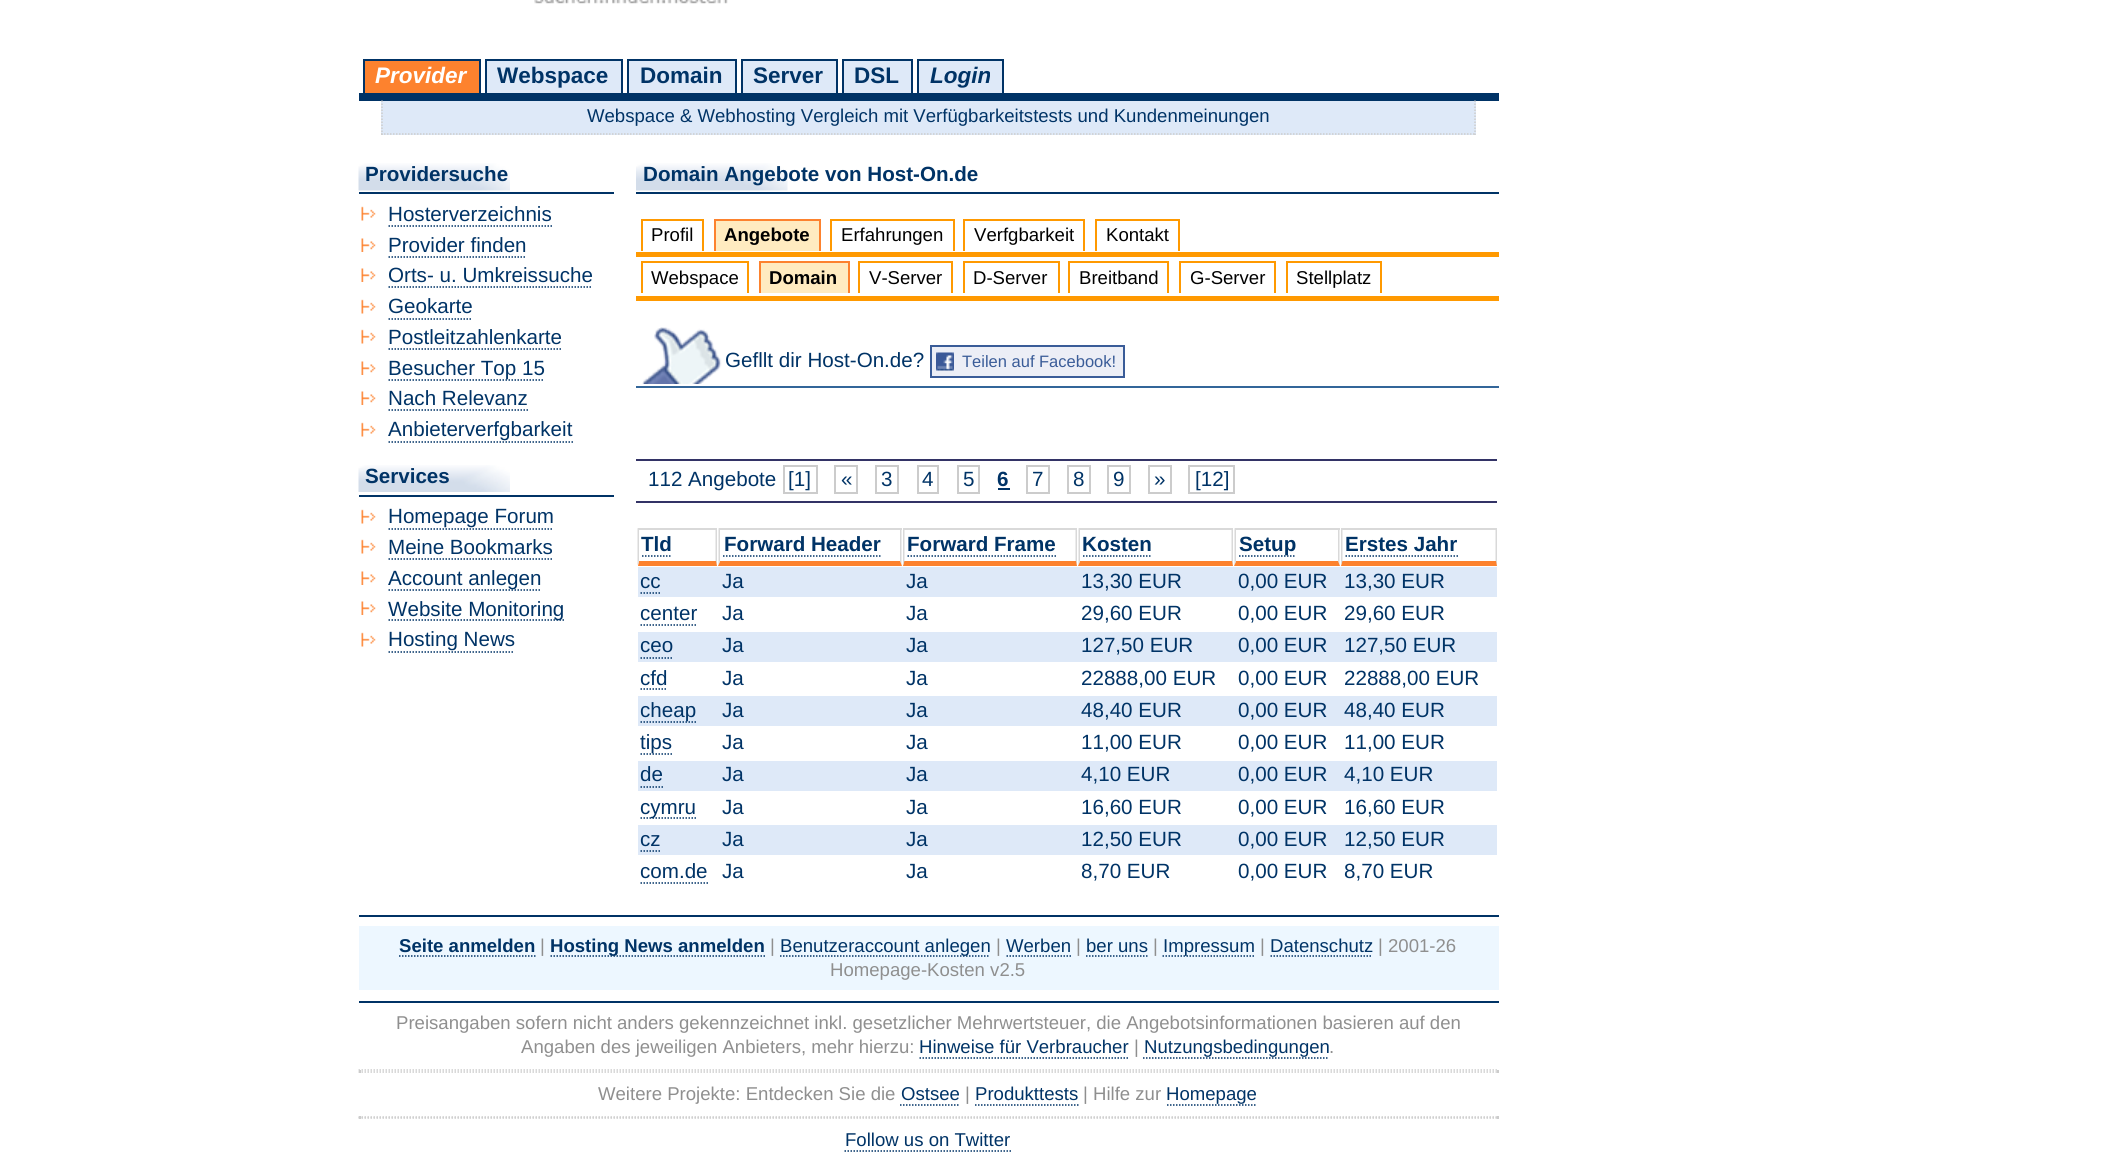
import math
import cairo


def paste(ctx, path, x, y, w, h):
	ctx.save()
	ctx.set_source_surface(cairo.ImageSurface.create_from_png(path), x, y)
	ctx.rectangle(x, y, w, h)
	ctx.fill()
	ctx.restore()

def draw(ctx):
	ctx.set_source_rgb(1, 1, 1)
	ctx.paint()
	paste(ctx, 'media/1.png', 534, 0, 194, 4)
	ctx.set_source_rgb(0, 0.2, 0.4)
	ctx.rectangle(359, 93, 1140, 8)
	ctx.fill()
	ctx.set_source_rgb(0.992, 0.51, 0.18)
	ctx.rectangle(365, 61, 114, 32)
	ctx.fill()
	ctx.set_source_rgb(0, 0.2, 0.4)
	ctx.rectangle(363, 59, 117, 2)
	ctx.rectangle(479, 59, 2, 34)
	ctx.rectangle(363, 59, 2, 34)
	ctx.fill()
	ctx.select_font_face('Liberation Sans', cairo.FONT_SLANT_ITALIC, cairo.FONT_WEIGHT_BOLD)
	ctx.set_font_size(22.5)
	ctx.set_source_rgb(1, 1, 1)
	ctx.move_to(375, 83)
	ctx.show_text('Provider')
	ctx.set_source_rgb(0.871, 0.914, 0.969)
	ctx.rectangle(487, 61, 134, 32)
	ctx.fill()
	ctx.set_source_rgb(0, 0.2, 0.4)
	ctx.rectangle(485, 59, 138, 2)
	ctx.rectangle(621, 59, 2, 34)
	ctx.rectangle(485, 59, 2, 34)
	ctx.fill()
	ctx.select_font_face('Liberation Sans', cairo.FONT_SLANT_NORMAL, cairo.FONT_WEIGHT_BOLD)
	ctx.move_to(497, 83)
	ctx.show_text('Webspace')
	ctx.set_source_rgb(0.871, 0.914, 0.969)
	ctx.rectangle(629, 61, 106, 32)
	ctx.fill()
	ctx.set_source_rgb(0, 0.2, 0.4)
	ctx.rectangle(627, 59, 110, 2)
	ctx.rectangle(735, 59, 2, 34)
	ctx.rectangle(627, 59, 2, 34)
	ctx.fill()
	ctx.move_to(640, 83)
	ctx.show_text('Domain')
	ctx.set_source_rgb(0.871, 0.914, 0.969)
	ctx.rectangle(743, 61, 93, 32)
	ctx.fill()
	ctx.set_source_rgb(0, 0.2, 0.4)
	ctx.rectangle(741, 59, 96, 2)
	ctx.rectangle(836, 59, 2, 34)
	ctx.rectangle(741, 59, 2, 34)
	ctx.fill()
	ctx.move_to(753, 83)
	ctx.show_text('Server')
	ctx.set_source_rgb(0.871, 0.914, 0.969)
	ctx.rectangle(844, 61, 67, 32)
	ctx.fill()
	ctx.set_source_rgb(0, 0.2, 0.4)
	ctx.rectangle(842, 59, 70, 2)
	ctx.rectangle(911, 59, 2, 34)
	ctx.rectangle(842, 59, 2, 34)
	ctx.fill()
	ctx.move_to(854, 83)
	ctx.show_text('DSL')
	ctx.set_source_rgb(0.871, 0.914, 0.969)
	ctx.rectangle(919, 61, 83, 32)
	ctx.fill()
	ctx.set_source_rgb(0, 0.2, 0.4)
	ctx.rectangle(917, 59, 87, 2)
	ctx.rectangle(1002, 59, 2, 34)
	ctx.rectangle(917, 59, 2, 34)
	ctx.fill()
	ctx.select_font_face('Liberation Sans', cairo.FONT_SLANT_ITALIC, cairo.FONT_WEIGHT_BOLD)
	ctx.move_to(930, 83)
	ctx.show_text('Login')
	ctx.set_source_rgb(0.871, 0.914, 0.969)
	ctx.rectangle(381, 101, 1095, 34)
	ctx.fill()
	ctx.new_path()
	ctx.move_to(1475, 100.5)
	ctx.line_to(1475, 135)
	ctx.set_source_rgb(0.8, 0.8, 0.8)
	ctx.set_line_width(1.5)
	ctx.set_dash([1.5, 1.5])
	ctx.stroke()
	ctx.new_path()
	ctx.move_to(381, 134)
	ctx.line_to(1476, 134)
	ctx.stroke()
	ctx.new_path()
	ctx.move_to(382, 100.5)
	ctx.line_to(382, 135)
	ctx.stroke()
	ctx.select_font_face('Liberation Sans')
	ctx.set_font_size(18.58)
	ctx.set_source_rgb(0, 0.2, 0.4)
	ctx.move_to(587, 122)
	ctx.show_text('Webspace & Webhosting Vergleich mit Verfügbarkeitstests und Kundenmeinungen')
	paste(ctx, 'media/2.png', 358, 163, 152, 28)
	ctx.select_font_face('Liberation Sans', cairo.FONT_SLANT_NORMAL, cairo.FONT_WEIGHT_BOLD)
	ctx.set_font_size(20.6)
	ctx.move_to(365, 181)
	ctx.show_text('Providersuche')
	ctx.rectangle(359, 192, 255, 2)
	ctx.fill()
	paste(ctx, 'media/3.png', 361, 206, 15, 15)
	ctx.select_font_face('Liberation Sans')
	ctx.move_to(388, 221)
	ctx.show_text('Hosterverzeichnis')
	ctx.new_path()
	ctx.move_to(388.5, 226)
	ctx.line_to(552, 226)
	ctx.stroke()
	paste(ctx, 'media/4.png', 361, 238, 15, 14)
	ctx.move_to(388, 252)
	ctx.show_text('Provider finden')
	ctx.new_path()
	ctx.move_to(388.5, 257)
	ctx.line_to(526.5, 257)
	ctx.stroke()
	paste(ctx, 'media/4.png', 361, 268, 15, 14)
	ctx.move_to(388, 282)
	ctx.show_text('Orts- u. Umkreissuche')
	ctx.new_path()
	ctx.move_to(388.5, 287)
	ctx.line_to(592.5, 287)
	ctx.stroke()
	paste(ctx, 'media/3.png', 361, 299, 15, 15)
	ctx.move_to(388, 313)
	ctx.show_text('Geokarte')
	ctx.new_path()
	ctx.move_to(388.5, 319)
	ctx.line_to(472.5, 319)
	ctx.stroke()
	paste(ctx, 'media/3.png', 361, 329, 15, 15)
	ctx.move_to(388, 344)
	ctx.show_text('Postleitzahlenkarte')
	ctx.new_path()
	ctx.move_to(388.5, 349)
	ctx.line_to(562.5, 349)
	ctx.stroke()
	paste(ctx, 'media/4.png', 361, 361, 15, 14)
	ctx.new_path()
	ctx.move_to(388.5, 380)
	ctx.line_to(544.5, 380)
	ctx.stroke()
	ctx.move_to(388, 375)
	ctx.show_text('Besucher Top 15')
	paste(ctx, 'media/4.png', 361, 391, 15, 14)
	ctx.move_to(388, 405)
	ctx.show_text('Nach Relevanz')
	ctx.new_path()
	ctx.move_to(388.5, 410)
	ctx.line_to(528, 410)
	ctx.stroke()
	paste(ctx, 'media/3.png', 361, 422, 15, 15)
	ctx.move_to(388, 436)
	ctx.show_text('Anbieterverfgbarkeit')
	ctx.new_path()
	ctx.move_to(388.5, 442)
	ctx.line_to(573, 442)
	ctx.stroke()
	paste(ctx, 'media/5.png', 358, 465, 152, 27)
	ctx.select_font_face('Liberation Sans', cairo.FONT_SLANT_NORMAL, cairo.FONT_WEIGHT_BOLD)
	ctx.move_to(365, 483)
	ctx.show_text('Services')
	ctx.rectangle(359, 495, 255, 2)
	ctx.fill()
	paste(ctx, 'media/3.png', 361, 509, 15, 15)
	ctx.select_font_face('Liberation Sans')
	ctx.move_to(388, 523)
	ctx.show_text('Homepage Forum')
	ctx.new_path()
	ctx.move_to(388.5, 529)
	ctx.line_to(553.5, 529)
	ctx.stroke()
	paste(ctx, 'media/3.png', 361, 539, 15, 15)
	ctx.move_to(388, 554)
	ctx.show_text('Meine Bookmarks')
	ctx.new_path()
	ctx.move_to(388.5, 559)
	ctx.line_to(553.5, 559)
	ctx.stroke()
	paste(ctx, 'media/4.png', 361, 571, 15, 14)
	ctx.new_path()
	ctx.move_to(388.5, 590)
	ctx.line_to(541.5, 590)
	ctx.stroke()
	ctx.move_to(388, 585)
	ctx.show_text('Account anlegen')
	paste(ctx, 'media/4.png', 361, 601, 15, 14)
	ctx.new_path()
	ctx.move_to(388.5, 620)
	ctx.line_to(564, 620)
	ctx.stroke()
	ctx.move_to(388, 616)
	ctx.show_text('Website Monitoring')
	paste(ctx, 'media/3.png', 361, 632, 15, 15)
	ctx.move_to(388, 646)
	ctx.show_text('Hosting News')
	ctx.new_path()
	ctx.move_to(388.5, 652)
	ctx.line_to(514.5, 652)
	ctx.stroke()
	paste(ctx, 'media/6.png', 636, 163, 152, 28)
	ctx.rectangle(636, 192, 863, 2)
	ctx.fill()
	ctx.select_font_face('Liberation Sans', cairo.FONT_SLANT_NORMAL, cairo.FONT_WEIGHT_BOLD)
	ctx.move_to(643, 181)
	ctx.show_text('Domain Angebote von Host-On.de')
	ctx.set_source_rgb(1, 0.6, 0)
	ctx.rectangle(636, 252, 863, 5)
	ctx.fill()
	ctx.select_font_face('Liberation Sans')
	ctx.set_font_size(18.58)
	ctx.set_source_rgb(0, 0, 0)
	ctx.move_to(651, 241)
	ctx.show_text('Profil')
	ctx.set_source_rgb(1, 0.6, 0)
	ctx.rectangle(641, 219, 63, 2)
	ctx.rectangle(702, 219, 2, 32)
	ctx.rectangle(641, 219, 2, 32)
	ctx.fill()
	ctx.set_source_rgb(1, 0.918, 0.753)
	ctx.rectangle(716, 221, 103, 30)
	ctx.fill()
	ctx.select_font_face('Liberation Sans', cairo.FONT_SLANT_NORMAL, cairo.FONT_WEIGHT_BOLD)
	ctx.set_source_rgb(0, 0, 0)
	ctx.move_to(724, 241)
	ctx.show_text('Angebote')
	ctx.set_source_rgb(0.992, 0.51, 0.18)
	ctx.rectangle(714, 219, 107, 2)
	ctx.rectangle(819, 219, 2, 32)
	ctx.rectangle(714, 219, 2, 32)
	ctx.fill()
	ctx.select_font_face('Liberation Sans')
	ctx.set_source_rgb(0, 0, 0)
	ctx.move_to(841, 241)
	ctx.show_text('Erfahrungen')
	ctx.set_source_rgb(1, 0.6, 0)
	ctx.rectangle(830, 219, 124, 2)
	ctx.rectangle(953, 219, 2, 32)
	ctx.rectangle(830, 219, 2, 32)
	ctx.fill()
	ctx.set_source_rgb(0, 0, 0)
	ctx.move_to(974, 241)
	ctx.show_text('Verfgbarkeit')
	ctx.set_source_rgb(1, 0.6, 0)
	ctx.rectangle(963, 219, 122, 2)
	ctx.rectangle(1083, 219, 2, 32)
	ctx.rectangle(963, 219, 2, 32)
	ctx.fill()
	ctx.set_source_rgb(0, 0, 0)
	ctx.move_to(1106, 241)
	ctx.show_text('Kontakt')
	ctx.set_source_rgb(1, 0.6, 0)
	ctx.rectangle(1095, 219, 84, 2)
	ctx.rectangle(1178, 219, 2, 32)
	ctx.rectangle(1095, 219, 2, 32)
	ctx.rectangle(636, 296, 863, 5)
	ctx.fill()
	ctx.set_source_rgb(0, 0, 0)
	ctx.move_to(651, 284)
	ctx.show_text('Webspace')
	ctx.set_source_rgb(1, 0.6, 0)
	ctx.rectangle(641, 261, 108, 2)
	ctx.rectangle(747, 261, 2, 32)
	ctx.rectangle(641, 261, 2, 32)
	ctx.fill()
	ctx.set_source_rgb(1, 0.918, 0.753)
	ctx.rectangle(761, 263, 87, 30)
	ctx.fill()
	ctx.select_font_face('Liberation Sans', cairo.FONT_SLANT_NORMAL, cairo.FONT_WEIGHT_BOLD)
	ctx.set_source_rgb(0, 0, 0)
	ctx.move_to(769, 284)
	ctx.show_text('Domain')
	ctx.set_source_rgb(0.992, 0.51, 0.18)
	ctx.rectangle(759, 261, 90, 2)
	ctx.rectangle(848, 261, 2, 32)
	ctx.rectangle(759, 261, 2, 32)
	ctx.fill()
	ctx.select_font_face('Liberation Sans')
	ctx.set_source_rgb(0, 0, 0)
	ctx.move_to(869, 284)
	ctx.show_text('V-Server')
	ctx.set_source_rgb(1, 0.6, 0)
	ctx.rectangle(858, 261, 95, 2)
	ctx.rectangle(951, 261, 2, 32)
	ctx.rectangle(858, 261, 2, 32)
	ctx.fill()
	ctx.set_source_rgb(0, 0, 0)
	ctx.move_to(973, 284)
	ctx.show_text('D-Server')
	ctx.set_source_rgb(1, 0.6, 0)
	ctx.rectangle(963, 261, 96, 2)
	ctx.rectangle(1058, 261, 2, 32)
	ctx.rectangle(963, 261, 2, 32)
	ctx.fill()
	ctx.set_source_rgb(0, 0, 0)
	ctx.move_to(1079, 284)
	ctx.show_text('Breitband')
	ctx.set_source_rgb(1, 0.6, 0)
	ctx.rectangle(1068, 261, 101, 2)
	ctx.rectangle(1167, 261, 2, 32)
	ctx.rectangle(1068, 261, 2, 32)
	ctx.fill()
	ctx.set_source_rgb(0, 0, 0)
	ctx.move_to(1190, 284)
	ctx.show_text('G-Server')
	ctx.set_source_rgb(1, 0.6, 0)
	ctx.rectangle(1179, 261, 96, 2)
	ctx.rectangle(1274, 261, 2, 32)
	ctx.rectangle(1179, 261, 2, 32)
	ctx.fill()
	ctx.set_source_rgb(0, 0, 0)
	ctx.move_to(1296, 284)
	ctx.show_text('Stellplatz')
	ctx.set_source_rgb(1, 0.6, 0)
	ctx.rectangle(1286, 261, 96, 2)
	ctx.rectangle(1380, 261, 2, 32)
	ctx.rectangle(1286, 261, 2, 32)
	ctx.fill()
	paste(ctx, 'media/7.png', 642, 327, 80, 57)
	ctx.set_source_rgb(0.2, 0.4, 0.6)
	ctx.rectangle(636, 386, 863, 2)
	ctx.fill()
	ctx.set_font_size(20.6)
	ctx.set_source_rgb(0, 0.2, 0.4)
	ctx.move_to(725, 367)
	ctx.show_text('Gefllt dir Host-On.de?')
	ctx.set_source_rgb(0.925, 0.933, 0.961)
	ctx.rectangle(932, 347, 191, 29)
	ctx.fill()
	paste(ctx, 'media/8.png', 936, 352, 18, 19)
	ctx.rectangle(931, 346, 193, 31)
	ctx.set_source_rgb(0.227, 0.361, 0.596)
	ctx.set_line_width(2)
	ctx.set_dash([])
	ctx.stroke()
	ctx.set_font_size(16.5)
	ctx.move_to(962, 367)
	ctx.show_text('Teilen auf Facebook!')
	ctx.set_source_rgb(0.2, 0.2, 0.4)
	ctx.rectangle(636, 459, 861, 2)
	ctx.fill()
	ctx.rectangle(636, 501, 861, 2)
	ctx.fill()
	ctx.set_font_size(20.6)
	ctx.set_source_rgb(0, 0.2, 0.4)
	ctx.move_to(648, 486)
	ctx.show_text('112 Angebote')
	ctx.rectangle(784, 466, 33, 27)
	ctx.set_source_rgb(0.8, 0.8, 0.8)
	ctx.stroke()
	ctx.set_source_rgb(0, 0.2, 0.4)
	ctx.move_to(788, 486)
	ctx.show_text('[1]')
	ctx.rectangle(835, 466, 22, 27)
	ctx.set_source_rgb(0.8, 0.8, 0.8)
	ctx.stroke()
	ctx.set_source_rgb(0, 0.2, 0.4)
	ctx.move_to(841, 486)
	ctx.show_text('«')
	ctx.rectangle(876, 466, 22, 27)
	ctx.set_source_rgb(0.8, 0.8, 0.8)
	ctx.stroke()
	ctx.set_source_rgb(0, 0.2, 0.4)
	ctx.move_to(881, 486)
	ctx.show_text('3')
	ctx.rectangle(918, 466, 20, 27)
	ctx.set_source_rgb(0.8, 0.8, 0.8)
	ctx.stroke()
	ctx.set_source_rgb(0, 0.2, 0.4)
	ctx.move_to(922, 486)
	ctx.show_text('4')
	ctx.rectangle(958, 466, 21, 27)
	ctx.set_source_rgb(0.8, 0.8, 0.8)
	ctx.stroke()
	ctx.set_source_rgb(0, 0.2, 0.4)
	ctx.move_to(963, 486)
	ctx.show_text('5')
	ctx.select_font_face('Liberation Sans', cairo.FONT_SLANT_NORMAL, cairo.FONT_WEIGHT_BOLD)
	ctx.move_to(997, 486)
	ctx.show_text('6')
	ctx.rectangle(998, 488, 12, 2)
	ctx.fill()
	ctx.rectangle(1027, 466, 22, 27)
	ctx.set_source_rgb(0.8, 0.8, 0.8)
	ctx.stroke()
	ctx.select_font_face('Liberation Sans')
	ctx.set_source_rgb(0, 0.2, 0.4)
	ctx.move_to(1032, 486)
	ctx.show_text('7')
	ctx.rectangle(1068, 466, 22, 27)
	ctx.set_source_rgb(0.8, 0.8, 0.8)
	ctx.stroke()
	ctx.set_source_rgb(0, 0.2, 0.4)
	ctx.move_to(1073, 486)
	ctx.show_text('8')
	ctx.rectangle(1108, 466, 22, 27)
	ctx.set_source_rgb(0.8, 0.8, 0.8)
	ctx.stroke()
	ctx.set_source_rgb(0, 0.2, 0.4)
	ctx.move_to(1113, 486)
	ctx.show_text('9')
	ctx.rectangle(1149, 466, 22, 27)
	ctx.set_source_rgb(0.8, 0.8, 0.8)
	ctx.stroke()
	ctx.set_source_rgb(0, 0.2, 0.4)
	ctx.move_to(1154, 486)
	ctx.show_text('»')
	ctx.rectangle(1189, 466, 45, 27)
	ctx.set_source_rgb(0.8, 0.8, 0.8)
	ctx.stroke()
	ctx.set_source_rgb(0, 0.2, 0.4)
	ctx.move_to(1195, 486)
	ctx.show_text('[12]')
	ctx.set_source_rgb(0.851, 0.851, 0.851)
	ctx.rectangle(638, 528, 79, 2)
	ctx.fill()
	ctx.new_path()
	ctx.move_to(717, 528)
	ctx.line_to(717, 565.5)
	ctx.line_to(715.5, 561)
	ctx.line_to(715.5, 529.5)
	ctx.close_path()
	ctx.fill()
	ctx.set_source_rgb(0.992, 0.51, 0.18)
	ctx.new_path()
	ctx.move_to(717, 566)
	ctx.line_to(638, 566)
	ctx.line_to(639, 561)
	ctx.line_to(716, 561)
	ctx.close_path()
	ctx.fill()
	ctx.set_source_rgb(0.851, 0.851, 0.851)
	ctx.new_path()
	ctx.move_to(637.5, 565.5)
	ctx.line_to(637.5, 528)
	ctx.line_to(639, 529.5)
	ctx.line_to(639, 561)
	ctx.close_path()
	ctx.fill()
	ctx.select_font_face('Liberation Sans', cairo.FONT_SLANT_NORMAL, cairo.FONT_WEIGHT_BOLD)
	ctx.set_source_rgb(0, 0.2, 0.4)
	ctx.move_to(641, 551)
	ctx.show_text('Tld')
	ctx.new_path()
	ctx.move_to(642, 556)
	ctx.line_to(672, 556)
	ctx.set_line_width(1.5)
	ctx.set_dash([1.5, 1.5])
	ctx.stroke()
	ctx.set_source_rgb(0.851, 0.851, 0.851)
	ctx.rectangle(719, 528, 183, 2)
	ctx.fill()
	ctx.new_path()
	ctx.move_to(901.5, 528)
	ctx.line_to(901.5, 565.5)
	ctx.line_to(900, 561)
	ctx.line_to(900, 529.5)
	ctx.close_path()
	ctx.fill()
	ctx.set_source_rgb(0.992, 0.51, 0.18)
	ctx.new_path()
	ctx.move_to(902, 566)
	ctx.line_to(718, 566)
	ctx.line_to(720, 561)
	ctx.line_to(900, 561)
	ctx.close_path()
	ctx.fill()
	ctx.set_source_rgb(0.851, 0.851, 0.851)
	ctx.new_path()
	ctx.move_to(718.5, 565.5)
	ctx.line_to(718.5, 528)
	ctx.line_to(720, 529.5)
	ctx.line_to(720, 561)
	ctx.close_path()
	ctx.fill()
	ctx.set_source_rgb(0, 0.2, 0.4)
	ctx.move_to(724, 551)
	ctx.show_text('Forward Header')
	ctx.new_path()
	ctx.move_to(723, 556)
	ctx.line_to(880.5, 556)
	ctx.stroke()
	ctx.set_source_rgb(0.851, 0.851, 0.851)
	ctx.rectangle(903, 528, 174, 2)
	ctx.fill()
	ctx.new_path()
	ctx.move_to(1077, 528)
	ctx.line_to(1077, 565.5)
	ctx.line_to(1075.5, 561)
	ctx.line_to(1075.5, 529.5)
	ctx.close_path()
	ctx.fill()
	ctx.set_source_rgb(0.992, 0.51, 0.18)
	ctx.new_path()
	ctx.move_to(1077, 566)
	ctx.line_to(903, 566)
	ctx.line_to(904, 561)
	ctx.line_to(1076, 561)
	ctx.close_path()
	ctx.fill()
	ctx.set_source_rgb(0.851, 0.851, 0.851)
	ctx.new_path()
	ctx.move_to(903, 565.5)
	ctx.line_to(903, 528)
	ctx.line_to(904.5, 529.5)
	ctx.line_to(904.5, 561)
	ctx.close_path()
	ctx.fill()
	ctx.set_source_rgb(0, 0.2, 0.4)
	ctx.move_to(907, 551)
	ctx.show_text('Forward Frame')
	ctx.new_path()
	ctx.move_to(907.5, 556)
	ctx.line_to(1056, 556)
	ctx.stroke()
	ctx.set_source_rgb(0.851, 0.851, 0.851)
	ctx.rectangle(1079, 528, 154, 2)
	ctx.fill()
	ctx.new_path()
	ctx.move_to(1233, 528)
	ctx.line_to(1233, 565.5)
	ctx.line_to(1231.5, 561)
	ctx.line_to(1231.5, 529.5)
	ctx.close_path()
	ctx.fill()
	ctx.set_source_rgb(0.992, 0.51, 0.18)
	ctx.new_path()
	ctx.move_to(1233, 566)
	ctx.line_to(1078, 566)
	ctx.line_to(1080, 561)
	ctx.line_to(1232, 561)
	ctx.close_path()
	ctx.fill()
	ctx.set_source_rgb(0.851, 0.851, 0.851)
	ctx.new_path()
	ctx.move_to(1078.5, 565.5)
	ctx.line_to(1078.5, 528)
	ctx.line_to(1080, 529.5)
	ctx.line_to(1080, 561)
	ctx.close_path()
	ctx.fill()
	ctx.set_source_rgb(0, 0.2, 0.4)
	ctx.move_to(1082, 551)
	ctx.show_text('Kosten')
	ctx.new_path()
	ctx.move_to(1083, 556)
	ctx.line_to(1152, 556)
	ctx.stroke()
	ctx.set_source_rgb(0.851, 0.851, 0.851)
	ctx.rectangle(1235, 528, 105, 2)
	ctx.fill()
	ctx.new_path()
	ctx.move_to(1339.5, 528)
	ctx.line_to(1339.5, 565.5)
	ctx.line_to(1338, 561)
	ctx.line_to(1338, 529.5)
	ctx.close_path()
	ctx.fill()
	ctx.set_source_rgb(0.992, 0.51, 0.18)
	ctx.new_path()
	ctx.move_to(1340, 566)
	ctx.line_to(1234, 566)
	ctx.line_to(1236, 561)
	ctx.line_to(1338, 561)
	ctx.close_path()
	ctx.fill()
	ctx.set_source_rgb(0.851, 0.851, 0.851)
	ctx.new_path()
	ctx.move_to(1234.5, 565.5)
	ctx.line_to(1234.5, 528)
	ctx.line_to(1236, 529.5)
	ctx.line_to(1236, 561)
	ctx.close_path()
	ctx.fill()
	ctx.new_path()
	ctx.move_to(1239, 556)
	ctx.line_to(1296, 556)
	ctx.set_source_rgb(0, 0.2, 0.4)
	ctx.stroke()
	ctx.move_to(1239, 551)
	ctx.show_text('Setup')
	ctx.set_source_rgb(0.851, 0.851, 0.851)
	ctx.rectangle(1341, 528, 156, 2)
	ctx.fill()
	ctx.new_path()
	ctx.move_to(1497, 528)
	ctx.line_to(1497, 565.5)
	ctx.line_to(1495.5, 561)
	ctx.line_to(1495.5, 529.5)
	ctx.close_path()
	ctx.fill()
	ctx.set_source_rgb(0.992, 0.51, 0.18)
	ctx.new_path()
	ctx.move_to(1497, 566)
	ctx.line_to(1341, 566)
	ctx.line_to(1342, 561)
	ctx.line_to(1496, 561)
	ctx.close_path()
	ctx.fill()
	ctx.set_source_rgb(0.851, 0.851, 0.851)
	ctx.new_path()
	ctx.move_to(1341, 565.5)
	ctx.line_to(1341, 528)
	ctx.line_to(1342.5, 529.5)
	ctx.line_to(1342.5, 561)
	ctx.close_path()
	ctx.fill()
	ctx.set_source_rgb(0, 0.2, 0.4)
	ctx.move_to(1345, 551)
	ctx.show_text('Erstes Jahr')
	ctx.new_path()
	ctx.move_to(1345.5, 556)
	ctx.line_to(1458, 556)
	ctx.stroke()
	ctx.set_source_rgb(0.871, 0.914, 0.969)
	ctx.rectangle(638, 567, 859, 30)
	ctx.fill()
	ctx.select_font_face('Liberation Sans')
	ctx.set_source_rgb(0, 0.2, 0.4)
	ctx.move_to(640, 588)
	ctx.show_text('cc')
	ctx.new_path()
	ctx.move_to(640.5, 593)
	ctx.line_to(660, 593)
	ctx.stroke()
	for x, y, s in [
		(722, 588, 'Ja'),
		(906, 588, 'Ja'),
		(1081, 588, '13,30 EUR'),
		(1238, 588, '0,00 EUR'),
		(1344, 588, '13,30 EUR'),
		(640, 620, 'center'),
	]:
		ctx.move_to(x, y)
		ctx.show_text(s)
	ctx.new_path()
	ctx.move_to(640.5, 625)
	ctx.line_to(697.5, 625)
	ctx.stroke()
	for x, y, s in [
		(722, 620, 'Ja'),
		(906, 620, 'Ja'),
		(1081, 620, '29,60 EUR'),
		(1238, 620, '0,00 EUR'),
		(1344, 620, '29,60 EUR'),
	]:
		ctx.move_to(x, y)
		ctx.show_text(s)
	ctx.set_source_rgb(0.871, 0.914, 0.969)
	ctx.rectangle(638, 632, 859, 30)
	ctx.fill()
	ctx.set_source_rgb(0, 0.2, 0.4)
	ctx.move_to(640, 652)
	ctx.show_text('ceo')
	ctx.new_path()
	ctx.move_to(640.5, 658)
	ctx.line_to(673.5, 658)
	ctx.stroke()
	for x, y, s in [
		(722, 652, 'Ja'),
		(906, 652, 'Ja'),
		(1081, 652, '127,50 EUR'),
		(1238, 652, '0,00 EUR'),
		(1344, 652, '127,50 EUR'),
		(640, 685, 'cfd'),
	]:
		ctx.move_to(x, y)
		ctx.show_text(s)
	ctx.new_path()
	ctx.move_to(640.5, 689)
	ctx.line_to(667.5, 689)
	ctx.stroke()
	for x, y, s in [
		(722, 685, 'Ja'),
		(906, 685, 'Ja'),
		(1081, 685, '22888,00 EUR'),
		(1238, 685, '0,00 EUR'),
		(1344, 685, '22888,00 EUR'),
	]:
		ctx.move_to(x, y)
		ctx.show_text(s)
	ctx.set_source_rgb(0.871, 0.914, 0.969)
	ctx.rectangle(638, 696, 859, 30)
	ctx.fill()
	ctx.new_path()
	ctx.move_to(640.5, 722)
	ctx.line_to(696, 722)
	ctx.set_source_rgb(0, 0.2, 0.4)
	ctx.stroke()
	for x, y, s in [
		(640, 717, 'cheap'),
		(722, 717, 'Ja'),
		(906, 717, 'Ja'),
		(1081, 717, '48,40 EUR'),
		(1238, 717, '0,00 EUR'),
		(1344, 717, '48,40 EUR'),
	]:
		ctx.move_to(x, y)
		ctx.show_text(s)
	ctx.new_path()
	ctx.move_to(640.5, 754)
	ctx.line_to(672, 754)
	ctx.stroke()
	for x, y, s in [
		(640, 749, 'tips'),
		(722, 749, 'Ja'),
		(906, 749, 'Ja'),
		(1081, 749, '11,00 EUR'),
		(1238, 749, '0,00 EUR'),
		(1344, 749, '11,00 EUR'),
	]:
		ctx.move_to(x, y)
		ctx.show_text(s)
	ctx.set_source_rgb(0.871, 0.914, 0.969)
	ctx.rectangle(638, 761, 859, 30)
	ctx.fill()
	ctx.set_source_rgb(0, 0.2, 0.4)
	ctx.move_to(640, 781)
	ctx.show_text('de')
	ctx.new_path()
	ctx.move_to(640.5, 787)
	ctx.line_to(663, 787)
	ctx.stroke()
	for x, y, s in [
		(722, 781, 'Ja'),
		(906, 781, 'Ja'),
		(1081, 781, '4,10 EUR'),
		(1238, 781, '0,00 EUR'),
		(1344, 781, '4,10 EUR'),
	]:
		ctx.move_to(x, y)
		ctx.show_text(s)
	ctx.new_path()
	ctx.move_to(640.5, 818)
	ctx.line_to(696, 818)
	ctx.stroke()
	for x, y, s in [
		(640, 814, 'cymru'),
		(722, 814, 'Ja'),
		(906, 814, 'Ja'),
		(1081, 814, '16,60 EUR'),
		(1238, 814, '0,00 EUR'),
		(1344, 814, '16,60 EUR'),
	]:
		ctx.move_to(x, y)
		ctx.show_text(s)
	ctx.set_source_rgb(0.871, 0.914, 0.969)
	ctx.rectangle(638, 825, 859, 30)
	ctx.fill()
	ctx.set_source_rgb(0, 0.2, 0.4)
	ctx.move_to(640, 846)
	ctx.show_text('cz')
	ctx.new_path()
	ctx.move_to(640.5, 851)
	ctx.line_to(660, 851)
	ctx.stroke()
	for x, y, s in [
		(722, 846, 'Ja'),
		(906, 846, 'Ja'),
		(1081, 846, '12,50 EUR'),
		(1238, 846, '0,00 EUR'),
		(1344, 846, '12,50 EUR'),
		(640, 878, 'com.de'),
	]:
		ctx.move_to(x, y)
		ctx.show_text(s)
	ctx.new_path()
	ctx.move_to(640.5, 883)
	ctx.line_to(708, 883)
	ctx.stroke()
	for x, y, s in [
		(722, 878, 'Ja'),
		(906, 878, 'Ja'),
		(1081, 878, '8,70 EUR'),
		(1238, 878, '0,00 EUR'),
		(1344, 878, '8,70 EUR'),
	]:
		ctx.move_to(x, y)
		ctx.show_text(s)
	ctx.rectangle(359, 915, 1140, 2)
	ctx.fill()
	ctx.set_source_rgb(0.929, 0.965, 1)
	ctx.rectangle(359, 926, 1140, 64)
	ctx.fill()
	ctx.select_font_face('Liberation Sans', cairo.FONT_SLANT_NORMAL, cairo.FONT_WEIGHT_BOLD)
	ctx.set_font_size(18.58)
	ctx.set_source_rgb(0, 0.2, 0.4)
	ctx.move_to(399, 952)
	ctx.show_text('Seite anmelden')
	ctx.new_path()
	ctx.move_to(399, 956)
	ctx.line_to(535.5, 956)
	ctx.stroke()
	ctx.select_font_face('Liberation Sans')
	ctx.set_source_rgb(0.561, 0.561, 0.561)
	ctx.move_to(540, 952)
	ctx.show_text('|')
	ctx.new_path()
	ctx.move_to(550.5, 956)
	ctx.line_to(765, 956)
	ctx.set_source_rgb(0, 0.2, 0.4)
	ctx.stroke()
	ctx.select_font_face('Liberation Sans', cairo.FONT_SLANT_NORMAL, cairo.FONT_WEIGHT_BOLD)
	ctx.move_to(550, 952)
	ctx.show_text('Hosting News anmelden')
	ctx.select_font_face('Liberation Sans')
	ctx.set_source_rgb(0.561, 0.561, 0.561)
	ctx.move_to(770, 952)
	ctx.show_text('|')
	ctx.new_path()
	ctx.move_to(780, 956)
	ctx.line_to(990, 956)
	ctx.set_source_rgb(0, 0.2, 0.4)
	ctx.stroke()
	ctx.move_to(780, 952)
	ctx.show_text('Benutzeraccount anlegen')
	ctx.set_source_rgb(0.561, 0.561, 0.561)
	ctx.move_to(996, 952)
	ctx.show_text('|')
	ctx.set_source_rgb(0, 0.2, 0.4)
	ctx.move_to(1006, 952)
	ctx.show_text('Werben')
	ctx.new_path()
	ctx.move_to(1006.5, 956)
	ctx.line_to(1071, 956)
	ctx.stroke()
	ctx.set_source_rgb(0.561, 0.561, 0.561)
	ctx.move_to(1076, 952)
	ctx.show_text('|')
	ctx.set_source_rgb(0, 0.2, 0.4)
	ctx.move_to(1086, 952)
	ctx.show_text('ber uns')
	ctx.new_path()
	ctx.move_to(1086, 956)
	ctx.line_to(1147.5, 956)
	ctx.stroke()
	ctx.set_source_rgb(0.561, 0.561, 0.561)
	ctx.move_to(1153, 952)
	ctx.show_text('|')
	ctx.new_path()
	ctx.move_to(1162.5, 956)
	ctx.line_to(1255.5, 956)
	ctx.set_source_rgb(0, 0.2, 0.4)
	ctx.stroke()
	ctx.move_to(1163, 952)
	ctx.show_text('Impressum')
	ctx.set_source_rgb(0.561, 0.561, 0.561)
	ctx.move_to(1260, 952)
	ctx.show_text('|')
	ctx.set_source_rgb(0, 0.2, 0.4)
	ctx.move_to(1270, 952)
	ctx.show_text('Datenschutz')
	ctx.new_path()
	ctx.move_to(1270.5, 956)
	ctx.line_to(1372.5, 956)
	ctx.stroke()
	ctx.set_source_rgb(0.561, 0.561, 0.561)
	ctx.move_to(1378, 952)
	ctx.show_text('| 2001-26')
	ctx.move_to(830, 976)
	ctx.show_text('Homepage-Kosten v2.5')
	ctx.set_source_rgb(0, 0.2, 0.4)
	ctx.rectangle(359, 1001, 1140, 2)
	ctx.fill()
	ctx.set_source_rgb(0.561, 0.561, 0.561)
	ctx.move_to(396, 1029)
	ctx.show_text('Preisangaben sofern nicht anders gekennzeichnet inkl. gesetzlicher Mehrwertsteuer, die Angebotsinformationen basieren auf den')
	ctx.move_to(521, 1053)
	ctx.show_text('Angaben des jeweiligen Anbieters, mehr hierzu:')
	ctx.set_source_rgb(0, 0.2, 0.4)
	ctx.move_to(919, 1053)
	ctx.show_text('Hinweise für Verbraucher')
	ctx.new_path()
	ctx.move_to(919.5, 1058)
	ctx.line_to(1128, 1058)
	ctx.stroke()
	ctx.set_source_rgb(0.561, 0.561, 0.561)
	ctx.move_to(1134, 1053)
	ctx.show_text('|')
	ctx.set_source_rgb(0, 0.2, 0.4)
	ctx.move_to(1144, 1053)
	ctx.show_text('Nutzungsbedingungen')
	ctx.new_path()
	ctx.move_to(1143, 1058)
	ctx.line_to(1329, 1058)
	ctx.stroke()
	ctx.set_source_rgb(0.561, 0.561, 0.561)
	ctx.move_to(1329, 1053)
	ctx.show_text('.')
	ctx.new_path()
	ctx.move_to(358.5, 1070)
	ctx.line_to(1498.5, 1070)
	ctx.set_source_rgb(0.8, 0.8, 0.8)
	ctx.stroke()
	ctx.rectangle(1497, 1070, 2, 3)
	ctx.fill()
	ctx.new_path()
	ctx.move_to(358.5, 1072)
	ctx.line_to(1498.5, 1072)
	ctx.stroke()
	ctx.rectangle(359, 1070, 2, 3)
	ctx.fill()
	ctx.set_source_rgb(0.561, 0.561, 0.561)
	ctx.move_to(598, 1100)
	ctx.show_text('Weitere Projekte: Entdecken Sie die')
	ctx.set_source_rgb(0, 0.2, 0.4)
	ctx.move_to(901, 1100)
	ctx.show_text('Ostsee')
	ctx.new_path()
	ctx.move_to(900, 1105)
	ctx.line_to(960, 1105)
	ctx.stroke()
	ctx.set_source_rgb(0.561, 0.561, 0.561)
	ctx.move_to(965, 1100)
	ctx.show_text('|')
	ctx.set_source_rgb(0, 0.2, 0.4)
	ctx.move_to(975, 1100)
	ctx.show_text('Produkttests')
	ctx.new_path()
	ctx.move_to(975, 1105)
	ctx.line_to(1078.5, 1105)
	ctx.stroke()
	ctx.set_source_rgb(0.561, 0.561, 0.561)
	ctx.move_to(1083, 1100)
	ctx.show_text('| Hilfe zur')
	ctx.set_source_rgb(0, 0.2, 0.4)
	ctx.move_to(1166, 1100)
	ctx.show_text('Homepage')
	ctx.new_path()
	ctx.move_to(1167, 1105)
	ctx.line_to(1257, 1105)
	ctx.stroke()
	ctx.new_path()
	ctx.move_to(358.5, 1117)
	ctx.line_to(1498.5, 1117)
	ctx.set_source_rgb(0.8, 0.8, 0.8)
	ctx.stroke()
	ctx.rectangle(1497, 1116, 2, 3)
	ctx.fill()
	ctx.new_path()
	ctx.move_to(358.5, 1118)
	ctx.line_to(1498.5, 1118)
	ctx.stroke()
	ctx.rectangle(359, 1116, 2, 3)
	ctx.fill()
	ctx.set_source_rgb(0, 0.2, 0.4)
	ctx.move_to(845, 1146)
	ctx.show_text('Follow us on Twitter')
	ctx.new_path()
	ctx.move_to(844.5, 1151)
	ctx.line_to(1011, 1151)
	ctx.stroke()


surface = cairo.ImageSurface(cairo.FORMAT_RGB24, 2125, 1153)
ctx = cairo.Context(surface)
options = cairo.FontOptions()
options.set_hint_metrics(cairo.HINT_METRICS_OFF)
options.set_hint_style(cairo.HINT_STYLE_NONE)
ctx.set_font_options(options)
ctx.set_miter_limit(4)
draw(ctx)
surface.write_to_png('image.png')
